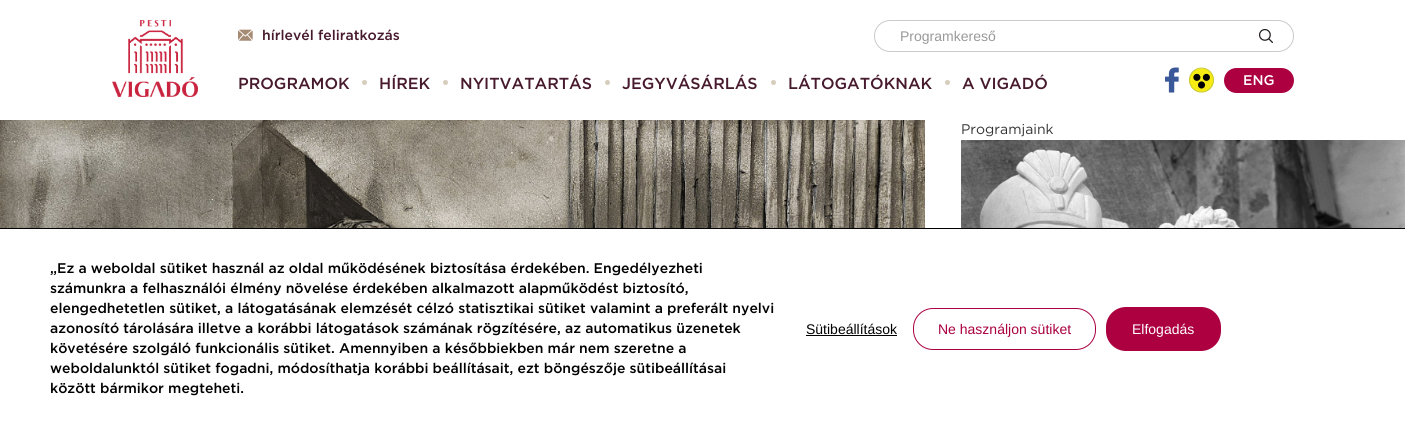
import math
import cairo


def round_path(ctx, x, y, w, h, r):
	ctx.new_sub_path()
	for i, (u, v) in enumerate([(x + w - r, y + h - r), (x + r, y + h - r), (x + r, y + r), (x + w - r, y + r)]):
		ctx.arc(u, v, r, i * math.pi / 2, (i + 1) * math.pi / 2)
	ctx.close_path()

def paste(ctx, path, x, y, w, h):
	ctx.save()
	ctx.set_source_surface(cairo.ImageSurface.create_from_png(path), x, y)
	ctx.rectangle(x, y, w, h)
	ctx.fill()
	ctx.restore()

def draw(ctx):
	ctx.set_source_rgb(1, 1, 1)
	ctx.paint()
	paste(ctx, 'media/1.png', 112, 20, 86, 77)
	paste(ctx, 'media/2.png', 238, 29, 15, 12)
	ctx.select_font_face('Gotham Medium')
	ctx.set_font_size(14)
	ctx.set_source_rgb(0.278, 0.102, 0.18)
	ctx.move_to(262, 40)
	ctx.show_text('hírlevél feliratkozás')
	round_path(ctx, 874.5, 20.5, 419, 31, 15.5)
	ctx.set_source_rgb(0.796, 0.792, 0.784)
	ctx.set_line_width(1)
	ctx.stroke()
	ctx.select_font_face('Liberation Sans')
	ctx.set_source_rgb(0.6, 0.6, 0.6)
	ctx.move_to(900, 41)
	ctx.show_text('Programkereső')
	paste(ctx, 'media/3.png', 1259, 29, 14, 14)
	ctx.select_font_face('Gotham Medium')
	ctx.set_font_size(16)
	ctx.set_source_rgb(0.278, 0.102, 0.18)
	ctx.move_to(238, 89)
	ctx.show_text('PROGRAMOK')
	ctx.set_source_rgb(0.839, 0.808, 0.741)
	ctx.new_path()
	ctx.arc(364.5, 82.5, 2.5, 0, 2 * math.pi)
	ctx.fill()
	ctx.set_source_rgb(0.278, 0.102, 0.18)
	ctx.move_to(379, 89)
	ctx.show_text('HÍREK')
	ctx.set_source_rgb(0.839, 0.808, 0.741)
	ctx.new_path()
	ctx.arc(445.5, 82.5, 2.5, 0, 2 * math.pi)
	ctx.fill()
	ctx.set_source_rgb(0.278, 0.102, 0.18)
	ctx.move_to(460, 89)
	ctx.show_text('NYITVATARTÁS')
	ctx.set_source_rgb(0.839, 0.808, 0.741)
	ctx.new_path()
	ctx.arc(607.5, 82.5, 2.5, 0, 2 * math.pi)
	ctx.fill()
	ctx.set_source_rgb(0.278, 0.102, 0.18)
	ctx.move_to(622, 89)
	ctx.show_text('JEGYVÁSÁRLÁS')
	ctx.set_source_rgb(0.839, 0.808, 0.741)
	ctx.new_path()
	ctx.arc(773.5, 82.5, 2.5, 0, 2 * math.pi)
	ctx.fill()
	ctx.set_source_rgb(0.278, 0.102, 0.18)
	ctx.move_to(788, 89)
	ctx.show_text('LÁTOGATÓKNAK')
	ctx.set_source_rgb(0.839, 0.808, 0.741)
	ctx.new_path()
	ctx.arc(947.5, 82.5, 2.5, 0, 2 * math.pi)
	ctx.fill()
	ctx.set_source_rgb(0.278, 0.102, 0.18)
	ctx.move_to(962, 89)
	ctx.show_text('A VIGADÓ')
	paste(ctx, 'media/4.png', 1165, 67, 14, 26)
	ctx.set_source_rgb(0.961, 0.922, 0.075)
	ctx.new_path()
	ctx.move_to(1213.5, 80)
	ctx.curve_to(1213.5, 96, 1189.5, 96, 1189.5, 80)
	ctx.curve_to(1189.5, 64.5, 1213.5, 64.5, 1213.5, 80)
	ctx.close_path()
	ctx.fill()
	paste(ctx, 'media/5.png', 1189, 67, 25, 26)
	paste(ctx, 'media/6.png', 1193, 73, 8, 8)
	paste(ctx, 'media/7.png', 1202, 73, 8, 8)
	paste(ctx, 'media/8.png', 1198, 81, 7, 8)
	ctx.set_source_rgb(0.675, 0, 0.251)
	round_path(ctx, 1224, 68, 70, 25, 12.5)
	ctx.fill()
	ctx.set_font_size(14)
	ctx.set_source_rgb(1, 1, 1)
	ctx.move_to(1243, 85)
	ctx.show_text('ENG')
	paste(ctx, 'media/9.png', 0, 120, 925, 108)
	ctx.select_font_face('Gotham')
	ctx.set_source_rgb(0.2, 0.2, 0.2)
	ctx.move_to(961, 134)
	ctx.show_text('Programjaink')
	paste(ctx, 'media/10.png', 961, 140, 444, 88)
	ctx.set_source_rgb(0, 0, 0)
	ctx.rectangle(0, 228, 1405, 1)
	ctx.fill()
	ctx.select_font_face('Gotham Medium')
	for x, y, s in [
		(50, 273, '„Ez a weboldal sütiket használ az oldal működésének biztosítása érdekében. Engedélyezheti'),
		(50, 293, 'számunkra a felhasználói élmény növelése érdekében alkalmazott alapműködést biztosító,'),
		(50, 313, 'elengedhetetlen sütiket, a látogatásának elemzését célzó statisztikai sütiket valamint a preferált nyelvi'),
		(50, 333, 'azonosító tárolására illetve a korábbi látogatások számának rögzítésére, az automatikus üzenetek'),
		(50, 353, 'követésére szolgáló funkcionális sütiket. Amennyiben a későbbiekben már nem szeretne a'),
		(50, 373, 'weboldalunktól sütiket fogadni, módosíthatja korábbi beállításait, ezt böngészője sütibeállításai'),
		(50, 393, 'között bármikor megteheti.'),
	]:
		ctx.move_to(x, y)
		ctx.show_text(s)
	ctx.select_font_face('Liberation Sans')
	ctx.move_to(806, 334)
	ctx.show_text('Sütibeállítások')
	ctx.rectangle(806, 335, 91, 1)
	ctx.fill()
	round_path(ctx, 913.5, 308.5, 182, 41, 19.5)
	ctx.set_source_rgb(0.667, 0, 0.247)
	ctx.stroke()
	ctx.move_to(938, 334)
	ctx.show_text('Ne használjon sütiket')
	ctx.set_source_rgb(0.675, 0, 0.251)
	round_path(ctx, 1106, 307, 115, 44, 20)
	ctx.fill()
	ctx.set_source_rgb(1, 1, 1)
	ctx.move_to(1132, 334)
	ctx.show_text('Elfogadás')


surface = cairo.ImageSurface(cairo.FORMAT_RGB24, 1405, 427)
ctx = cairo.Context(surface)
options = cairo.FontOptions()
options.set_hint_metrics(cairo.HINT_METRICS_OFF)
options.set_hint_style(cairo.HINT_STYLE_NONE)
ctx.set_font_options(options)
ctx.set_miter_limit(4)
draw(ctx)
surface.write_to_png('image.png')
